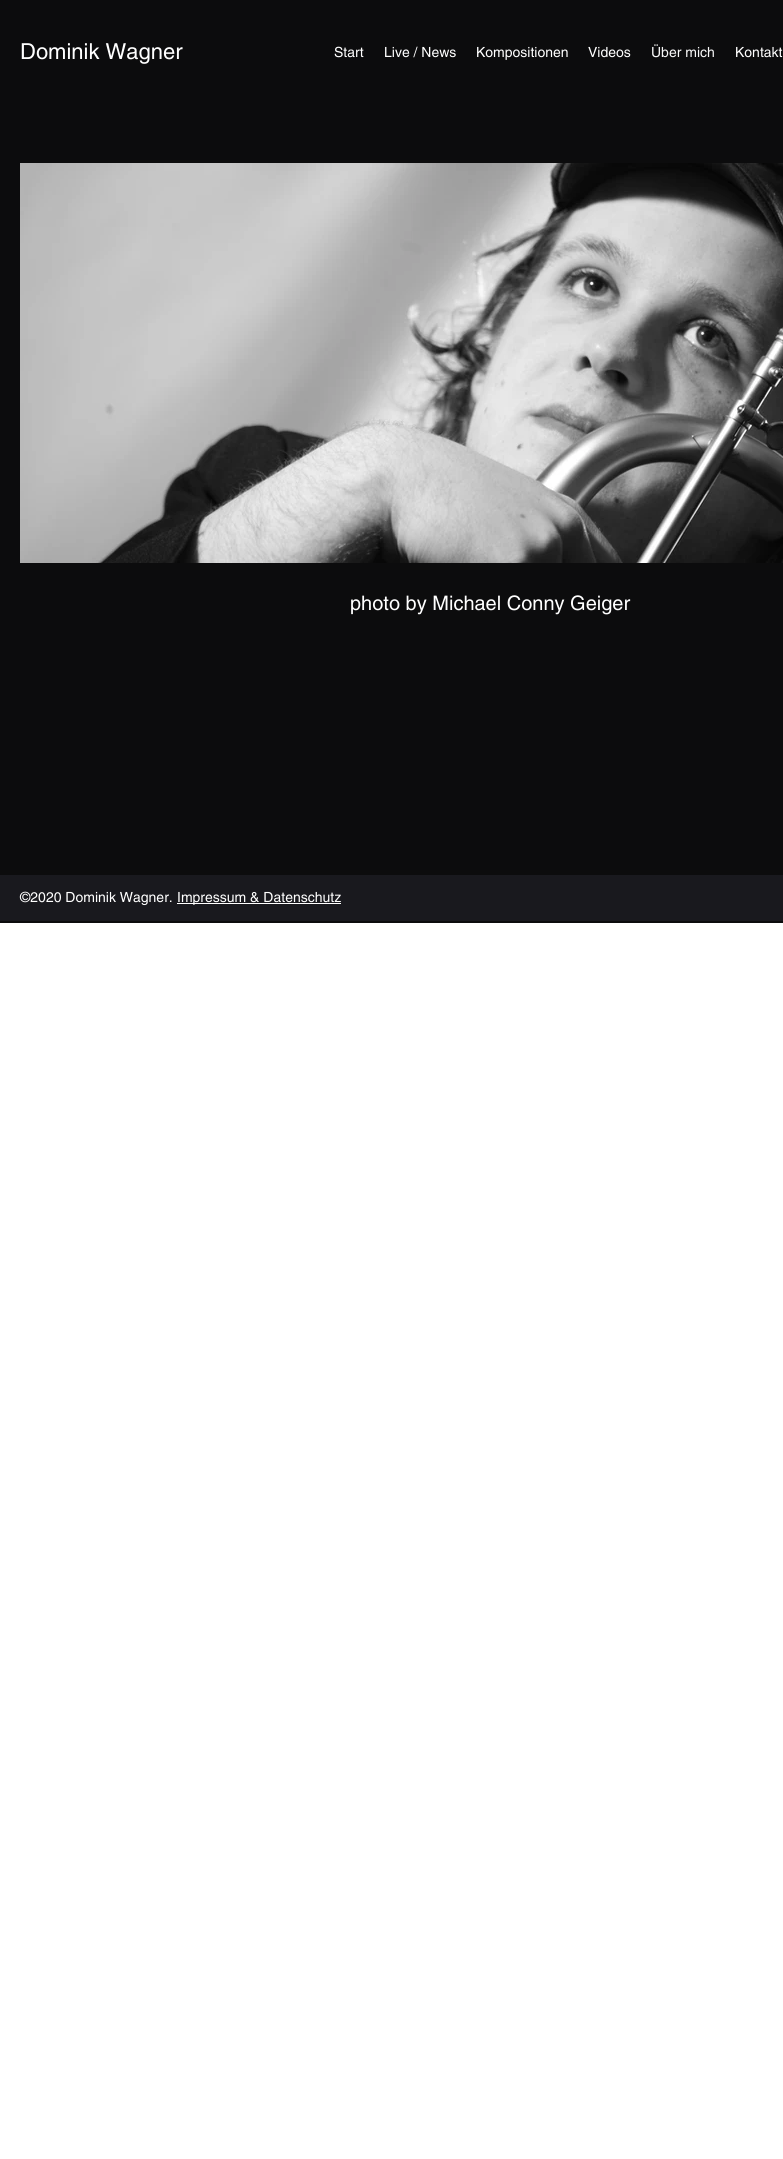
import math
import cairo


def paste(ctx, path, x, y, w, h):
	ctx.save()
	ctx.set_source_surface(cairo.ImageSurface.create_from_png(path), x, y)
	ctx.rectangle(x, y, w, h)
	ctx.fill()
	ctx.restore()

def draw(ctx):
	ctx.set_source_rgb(1, 1, 1)
	ctx.paint()
	ctx.set_source_rgb(0.047, 0.047, 0.051)
	ctx.rectangle(0, 0, 783, 923)
	ctx.fill()
	ctx.select_font_face('helvetica')
	ctx.set_font_size(22)
	ctx.set_source_rgb(1, 1, 1)
	ctx.move_to(20, 59)
	ctx.show_text('Dominik Wagner')
	ctx.set_font_size(14)
	for x, y, s in [
		(334, 57, 'Start'),
		(384, 57, 'Live / News'),
		(476, 57, 'Kompositionen'),
		(588, 57, 'Videos'),
	]:
		ctx.move_to(x, y)
		ctx.show_text(s)
	ctx.set_source_rgb(0.969, 0.969, 0.969)
	ctx.move_to(651, 57)
	ctx.show_text('Über mich')
	ctx.set_source_rgb(1, 1, 1)
	ctx.move_to(735, 57)
	ctx.show_text('Kontakt')
	paste(ctx, 'media/1.png', 20, 163, 763, 400)
	ctx.set_font_size(20)
	ctx.move_to(350, 610)
	ctx.show_text('photo by Michael Conny Geiger')
	ctx.set_source_rgb(0.098, 0.098, 0.118)
	ctx.rectangle(0, 875, 783, 46)
	ctx.fill()
	ctx.set_font_size(14)
	ctx.set_source_rgb(1, 1, 1)
	ctx.move_to(20, 902)
	ctx.show_text('©2020 Dominik Wagner.')
	ctx.rectangle(177, 903, 164, 1)
	ctx.fill()
	ctx.move_to(177, 902)
	ctx.show_text('Impressum & Datenschutz')


surface = cairo.ImageSurface(cairo.FORMAT_RGB24, 783, 2159)
ctx = cairo.Context(surface)
options = cairo.FontOptions()
options.set_hint_metrics(cairo.HINT_METRICS_OFF)
options.set_hint_style(cairo.HINT_STYLE_NONE)
ctx.set_font_options(options)
ctx.set_miter_limit(4)
draw(ctx)
surface.write_to_png('image.png')
